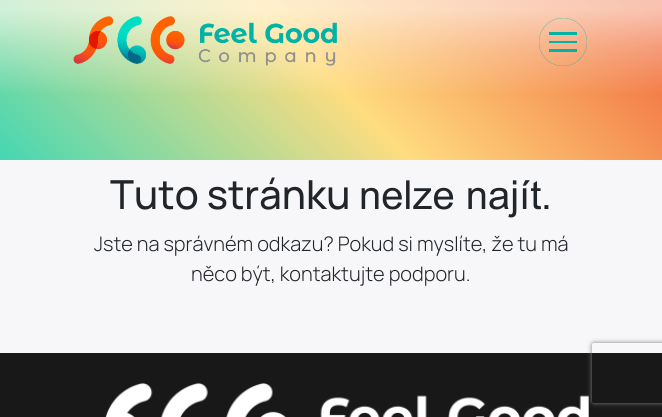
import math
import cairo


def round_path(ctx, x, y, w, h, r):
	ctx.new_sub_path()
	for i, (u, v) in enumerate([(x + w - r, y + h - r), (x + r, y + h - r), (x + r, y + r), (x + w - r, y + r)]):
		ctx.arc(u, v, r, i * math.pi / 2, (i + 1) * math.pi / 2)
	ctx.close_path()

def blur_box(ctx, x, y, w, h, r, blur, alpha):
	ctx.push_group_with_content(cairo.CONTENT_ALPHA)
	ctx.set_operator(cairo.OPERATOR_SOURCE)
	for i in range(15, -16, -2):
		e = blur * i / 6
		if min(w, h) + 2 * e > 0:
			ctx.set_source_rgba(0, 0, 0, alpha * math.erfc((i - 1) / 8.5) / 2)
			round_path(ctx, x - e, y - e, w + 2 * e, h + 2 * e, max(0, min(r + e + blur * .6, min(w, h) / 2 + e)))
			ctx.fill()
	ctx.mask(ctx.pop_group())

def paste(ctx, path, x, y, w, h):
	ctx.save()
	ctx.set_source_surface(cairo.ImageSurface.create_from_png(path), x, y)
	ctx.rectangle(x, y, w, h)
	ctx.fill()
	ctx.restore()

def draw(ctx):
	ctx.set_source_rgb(0.965, 0.965, 0.973)
	ctx.paint()
	gradient = cairo.LinearGradient(126, 286, 537, -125)
	gradient.add_color_stop_rgba(0, 0.271, 0.843, 0.702, 1)
	gradient.add_color_stop_rgba(0.5, 1, 0.863, 0.502, 1)
	gradient.add_color_stop_rgba(1, 0.937, 0.388, 0.224, 1)
	ctx.set_source(gradient)
	ctx.rectangle(0, 0, 662, 160)
	ctx.fill()
	gradient = cairo.LinearGradient(331, 0, 331, 95)
	gradient.add_color_stop_rgba(0.1, 1, 1, 1, 0.6)
	gradient.add_color_stop_rgba(0.5, 1, 1, 1, 0.3)
	gradient.add_color_stop_rgba(1, 1, 1, 1, 0)
	ctx.set_source(gradient)
	ctx.rectangle(0, 0, 662, 92)
	ctx.fill()
	paste(ctx, 'media/1.png', 73, 16, 264, 50)
	ctx.set_source_rgb(0, 0.702, 0.655)
	ctx.rectangle(549, 32, 28, 3)
	ctx.rectangle(549, 41, 28, 2)
	ctx.rectangle(549, 49, 28, 3)
	ctx.fill()
	ctx.save()
	ctx.rectangle(539, 18, 48, 48)
	ctx.clip()
	ctx.arc(563, 42, 24, 0, 2 * math.pi)
	ctx.set_line_width(0.3)
	ctx.stroke()
	ctx.restore()
	ctx.select_font_face('Manrope Medium')
	ctx.set_font_size(40)
	ctx.set_source_rgb(0.129, 0.145, 0.161)
	ctx.move_to(110, 209)
	ctx.show_text('Tuto stránku')
	ctx.select_font_face('Arial')
	ctx.move_to(359, 209)
	ctx.show_text('nelze najít')
	ctx.select_font_face('Manrope Medium')
	ctx.move_to(541, 209)
	ctx.show_text('.')
	ctx.select_font_face('Manrope Light')
	ctx.set_font_size(20)
	ctx.move_to(94, 251)
	ctx.show_text('Jste na správném odkazu? Pokud si myslíte, že tu má')
	ctx.move_to(191, 281)
	ctx.show_text('něco být, kontaktujte podporu.')
	ctx.set_source_rgb(0.098, 0.094, 0.094)
	ctx.rectangle(0, 353, 662, 64)
	ctx.fill()
	paste(ctx, 'media/2.png', 105, 383, 484, 34)
	ctx.save()
	ctx.set_fill_rule(cairo.FILL_RULE_EVEN_ODD)
	ctx.new_path()
	ctx.move_to(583, 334)
	ctx.line_to(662, 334)
	ctx.line_to(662, 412)
	ctx.line_to(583, 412)
	ctx.close_path()
	ctx.move_to(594, 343)
	ctx.line_to(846, 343)
	ctx.curve_to(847, 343, 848, 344, 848, 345)
	ctx.line_to(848, 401)
	ctx.curve_to(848, 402, 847, 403, 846, 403)
	ctx.line_to(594, 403)
	ctx.curve_to(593, 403, 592, 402, 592, 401)
	ctx.line_to(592, 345)
	ctx.curve_to(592, 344, 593, 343, 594, 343)
	ctx.close_path()
	ctx.clip()
	ctx.set_source_rgb(0.502, 0.502, 0.502)
	blur_box(ctx, 592, 343, 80, 60, 2, 2.5, 1)
	ctx.restore()


surface = cairo.ImageSurface(cairo.FORMAT_RGB24, 662, 417)
ctx = cairo.Context(surface)
options = cairo.FontOptions()
options.set_hint_metrics(cairo.HINT_METRICS_OFF)
options.set_hint_style(cairo.HINT_STYLE_NONE)
ctx.set_font_options(options)
ctx.set_miter_limit(4)
draw(ctx)
surface.write_to_png('image.png')
